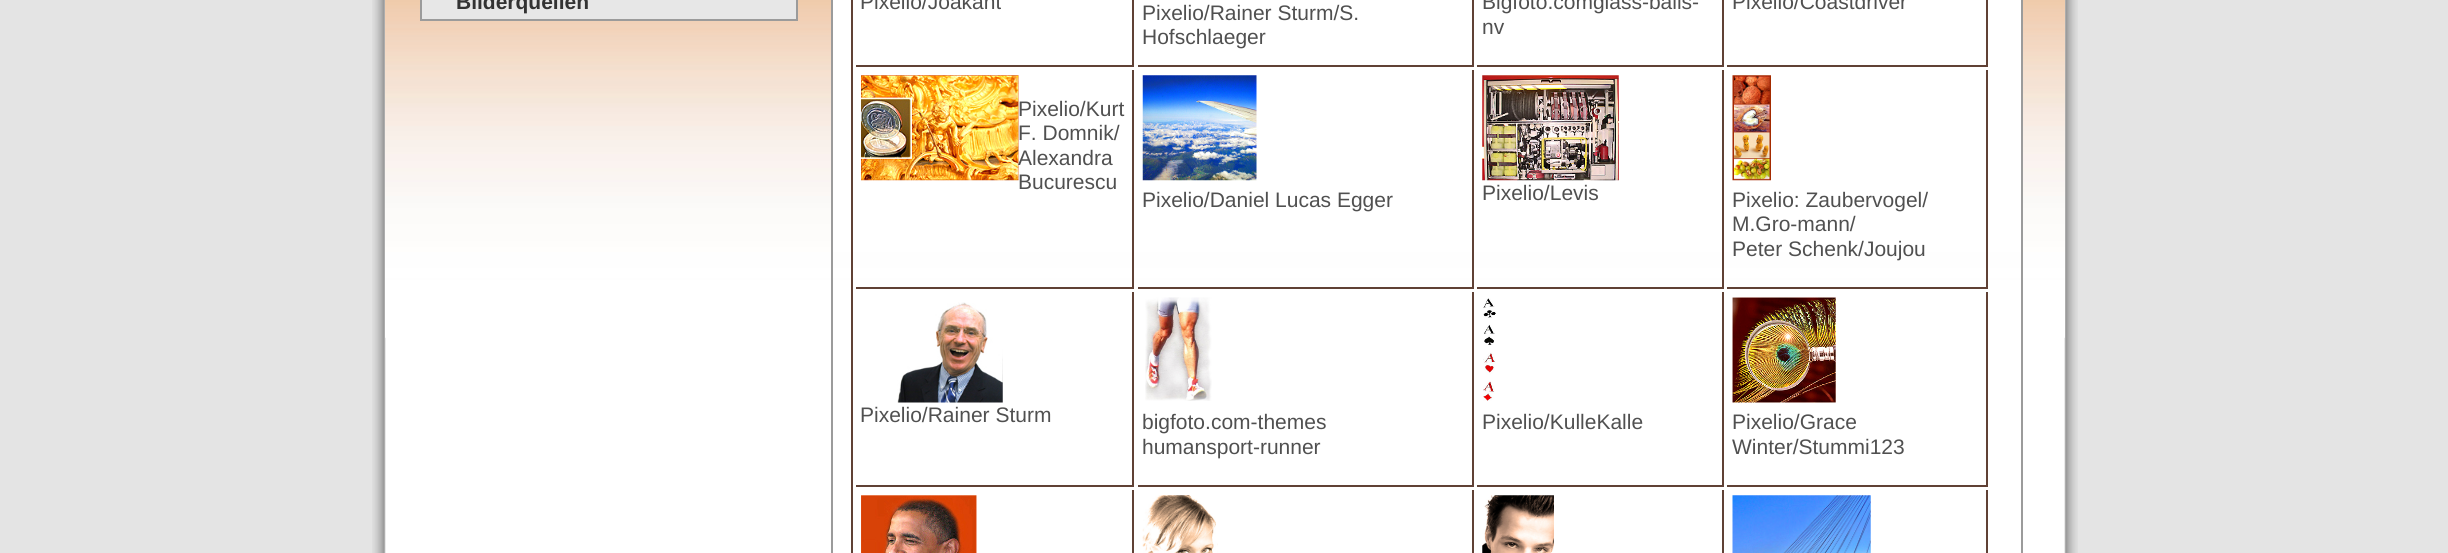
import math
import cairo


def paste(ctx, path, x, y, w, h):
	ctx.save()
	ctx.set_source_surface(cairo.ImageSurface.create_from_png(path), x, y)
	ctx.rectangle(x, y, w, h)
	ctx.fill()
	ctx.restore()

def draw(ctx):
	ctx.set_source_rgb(0.894, 0.894, 0.894)
	ctx.paint()
	paste(ctx, 'media/1.png', 372, 0, 1706, 553)
	paste(ctx, 'media/2.png', 385, 0, 1680, 338)
	ctx.set_source_rgb(0.906, 0.906, 0.906)
	ctx.rectangle(422, 0, 374, 19)
	ctx.fill()
	ctx.set_source_rgb(0.608, 0.608, 0.608)
	ctx.rectangle(796, 0, 2, 21)
	ctx.rectangle(420, 0, 2, 21)
	ctx.rectangle(422, 19, 374, 2)
	ctx.fill()
	ctx.select_font_face('Liberation Sans', cairo.FONT_SLANT_NORMAL, cairo.FONT_WEIGHT_BOLD)
	ctx.set_font_size(21)
	ctx.set_source_rgb(0.2, 0.2, 0.2)
	ctx.move_to(456, 9)
	ctx.show_text('Bilderquellen')
	ctx.set_source_rgb(1, 1, 1)
	ctx.rectangle(833, 0, 1188, 252)
	ctx.fill()
	ctx.rectangle(832, -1, 1190, 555)
	ctx.set_source_rgb(0.608, 0.608, 0.608)
	ctx.stroke()
	ctx.set_source_rgb(0.376, 0.255, 0.208)
	ctx.rectangle(851, 0, 2, 553)
	ctx.rectangle(1132, 0, 2, 67)
	ctx.rectangle(856, 65, 278, 2)
	ctx.fill()
	ctx.select_font_face('Liberation Sans')
	ctx.set_source_rgb(0.314, 0.314, 0.314)
	ctx.move_to(860, 9)
	ctx.show_text('Pixelio/Joakant')
	ctx.set_source_rgb(0.376, 0.255, 0.208)
	ctx.rectangle(1472, 0, 2, 67)
	ctx.fill()
	ctx.rectangle(1138, 65, 336, 2)
	ctx.fill()
	ctx.set_source_rgb(0.314, 0.314, 0.314)
	ctx.move_to(1142, 20)
	ctx.show_text('Pixelio/Rainer Sturm/S.')
	ctx.move_to(1142, 44)
	ctx.show_text('Hofschlaeger')
	ctx.set_source_rgb(0.376, 0.255, 0.208)
	ctx.rectangle(1722, 0, 2, 67)
	ctx.fill()
	ctx.rectangle(1477, 65, 247, 2)
	ctx.fill()
	ctx.set_source_rgb(0.314, 0.314, 0.314)
	ctx.move_to(1482, 9)
	ctx.show_text('Bigfoto.comglass-balls-')
	ctx.move_to(1482, 34)
	ctx.show_text('nv')
	ctx.set_source_rgb(0.376, 0.255, 0.208)
	ctx.rectangle(1986, 0, 2, 67)
	ctx.fill()
	ctx.rectangle(1727, 65, 261, 2)
	ctx.fill()
	ctx.set_source_rgb(0.314, 0.314, 0.314)
	ctx.move_to(1732, 9)
	ctx.show_text('Pixelio/Coastdriver')
	ctx.set_source_rgb(0.376, 0.255, 0.208)
	ctx.rectangle(1132, 70, 2, 219)
	ctx.fill()
	ctx.rectangle(856, 287, 278, 2)
	ctx.fill()
	paste(ctx, 'media/3.png', 861, 75, 158, 106)
	ctx.set_source_rgb(0.314, 0.314, 0.314)
	for x, y, s in [
		(1018, 116, 'Pixelio/Kurt'),
		(1018, 140, 'F. Domnik/'),
		(1018, 165, 'Alexandra'),
		(1018, 189, 'Bucurescu'),
	]:
		ctx.move_to(x, y)
		ctx.show_text(s)
	ctx.set_source_rgb(0.376, 0.255, 0.208)
	ctx.rectangle(1472, 70, 2, 219)
	ctx.fill()
	ctx.rectangle(1138, 287, 336, 2)
	ctx.fill()
	paste(ctx, 'media/4.png', 1142, 75, 115, 106)
	ctx.set_source_rgb(0.314, 0.314, 0.314)
	ctx.move_to(1142, 207)
	ctx.show_text('Pixelio/Daniel Lucas Egger')
	ctx.set_source_rgb(0.376, 0.255, 0.208)
	ctx.rectangle(1722, 70, 2, 219)
	ctx.fill()
	ctx.rectangle(1477, 287, 247, 2)
	ctx.fill()
	paste(ctx, 'media/5.png', 1482, 75, 137, 106)
	ctx.set_source_rgb(0.314, 0.314, 0.314)
	ctx.move_to(1482, 200)
	ctx.show_text('Pixelio/Levis')
	ctx.set_source_rgb(0.376, 0.255, 0.208)
	ctx.rectangle(1986, 70, 2, 219)
	ctx.fill()
	ctx.rectangle(1727, 287, 261, 2)
	ctx.fill()
	paste(ctx, 'media/6.png', 1732, 75, 39, 106)
	ctx.set_source_rgb(0.314, 0.314, 0.314)
	for x, y, s in [
		(1732, 207, 'Pixelio: Zaubervogel/'),
		(1732, 231, 'M.Gro-mann/'),
		(1732, 256, 'Peter Schenk/Joujou'),
	]:
		ctx.move_to(x, y)
		ctx.show_text(s)
	ctx.set_source_rgb(0.376, 0.255, 0.208)
	ctx.rectangle(1132, 292, 2, 195)
	ctx.fill()
	ctx.rectangle(856, 485, 278, 2)
	ctx.fill()
	paste(ctx, 'media/7.png', 897, 302, 106, 101)
	ctx.set_source_rgb(0.314, 0.314, 0.314)
	ctx.move_to(860, 422)
	ctx.show_text('Pixelio/Rainer Sturm')
	ctx.set_source_rgb(0.376, 0.255, 0.208)
	ctx.rectangle(1472, 292, 2, 195)
	ctx.fill()
	ctx.rectangle(1138, 485, 336, 2)
	ctx.fill()
	paste(ctx, 'media/8.png', 1145, 297, 67, 104)
	ctx.set_source_rgb(0.314, 0.314, 0.314)
	ctx.move_to(1142, 429)
	ctx.show_text('bigfoto.com-themes')
	ctx.move_to(1142, 454)
	ctx.show_text('humansport-runner')
	ctx.set_source_rgb(0.376, 0.255, 0.208)
	ctx.rectangle(1722, 292, 2, 195)
	ctx.fill()
	ctx.rectangle(1477, 485, 247, 2)
	ctx.fill()
	paste(ctx, 'media/9.png', 1483, 298, 13, 103)
	ctx.set_source_rgb(0.314, 0.314, 0.314)
	ctx.move_to(1482, 429)
	ctx.show_text('Pixelio/KulleKalle')
	ctx.set_source_rgb(0.376, 0.255, 0.208)
	ctx.rectangle(1986, 292, 2, 195)
	ctx.fill()
	ctx.rectangle(1727, 485, 261, 2)
	ctx.fill()
	paste(ctx, 'media/10.png', 1732, 297, 104, 106)
	ctx.set_source_rgb(0.314, 0.314, 0.314)
	ctx.move_to(1732, 429)
	ctx.show_text('Pixelio/Grace')
	ctx.move_to(1732, 454)
	ctx.show_text('Winter/Stummi123')
	ctx.set_source_rgb(0.376, 0.255, 0.208)
	ctx.rectangle(1132, 490, 2, 63)
	ctx.fill()
	paste(ctx, 'media/11.png', 861, 495, 116, 58)
	ctx.rectangle(1472, 490, 2, 63)
	ctx.fill()
	paste(ctx, 'media/12.png', 1142, 495, 76, 58)
	ctx.rectangle(1722, 490, 2, 63)
	ctx.fill()
	paste(ctx, 'media/13.png', 1482, 495, 72, 58)
	ctx.rectangle(1986, 490, 2, 63)
	ctx.fill()
	paste(ctx, 'media/14.png', 1732, 495, 139, 58)


surface = cairo.ImageSurface(cairo.FORMAT_RGB24, 2448, 553)
ctx = cairo.Context(surface)
options = cairo.FontOptions()
options.set_hint_metrics(cairo.HINT_METRICS_OFF)
options.set_hint_style(cairo.HINT_STYLE_NONE)
ctx.set_font_options(options)
ctx.set_miter_limit(4)
draw(ctx)
surface.write_to_png('image.png')
